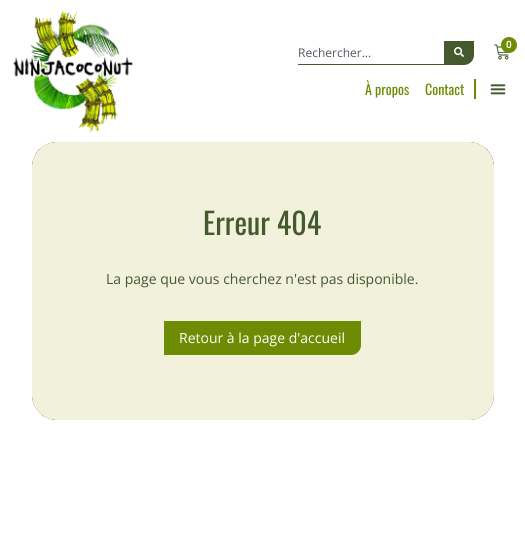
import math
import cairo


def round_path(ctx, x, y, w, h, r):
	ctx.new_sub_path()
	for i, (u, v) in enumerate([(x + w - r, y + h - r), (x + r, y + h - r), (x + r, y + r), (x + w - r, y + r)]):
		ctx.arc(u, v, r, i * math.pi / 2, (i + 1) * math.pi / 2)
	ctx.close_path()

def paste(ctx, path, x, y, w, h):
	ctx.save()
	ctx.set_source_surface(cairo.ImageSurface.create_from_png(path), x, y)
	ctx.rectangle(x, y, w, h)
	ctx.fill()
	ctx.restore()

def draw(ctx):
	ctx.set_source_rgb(1, 1, 1)
	ctx.paint()
	paste(ctx, 'media/1.png', 13, 11, 120, 121)
	paste(ctx, 'media/2.png', 494, 44, 15, 16)
	ctx.set_source_rgb(0.431, 0.549, 0.012)
	ctx.arc(509, 45, 8, 0, 2 * math.pi)
	ctx.fill()
	ctx.select_font_face('Roboto SemiBold')
	ctx.set_font_size(10)
	ctx.set_source_rgb(1, 1, 1)
	ctx.move_to(506, 48)
	ctx.show_text('0')
	ctx.set_source_rgb(0.267, 0.349, 0.18)
	ctx.rectangle(298, 64, 146, 1)
	ctx.fill()
	ctx.select_font_face('Open Sans')
	ctx.set_font_size(12)
	ctx.set_source_rgb(0.318, 0.349, 0.384)
	ctx.move_to(298, 57)
	ctx.show_text('Rechercher...')
	ctx.set_source_rgb(0.267, 0.349, 0.18)
	ctx.new_path()
	ctx.move_to(444, 41)
	ctx.line_to(474, 41)
	ctx.line_to(474, 55)
	ctx.curve_to(474, 60.5, 469.5, 65, 464, 65)
	ctx.line_to(444, 65)
	ctx.close_path()
	ctx.fill()
	paste(ctx, 'media/3.png', 454, 47, 10, 10)
	ctx.set_source_rgb(0.431, 0.549, 0.012)
	ctx.rectangle(474, 79, 2, 20)
	ctx.fill()
	ctx.select_font_face('Oswald')
	ctx.set_font_size(14)
	ctx.move_to(365, 95)
	ctx.show_text('À propos')
	ctx.move_to(425, 95)
	ctx.show_text('Contact')
	paste(ctx, 'media/4.png', 490, 84, 16, 11)
	paste(ctx, 'media/5.png', 32, 142, 462, 278)
	ctx.set_source_rgb(0.949, 0.945, 0.863)
	round_path(ctx, 32, 142, 462, 278, 25)
	ctx.fill()
	ctx.set_font_size(30)
	ctx.set_source_rgb(0.267, 0.349, 0.18)
	ctx.move_to(203, 235)
	ctx.show_text('Erreur 404')
	ctx.select_font_face('Open Sans')
	ctx.set_font_size(14)
	ctx.move_to(106, 284)
	ctx.show_text('La page que vous cherchez n\'est pas disponible.')
	ctx.set_source_rgb(0.431, 0.549, 0.012)
	ctx.new_path()
	ctx.move_to(164, 321)
	ctx.line_to(361, 321)
	ctx.line_to(361, 345)
	ctx.curve_to(361, 350.5, 356.5, 355, 351, 355)
	ctx.line_to(164, 355)
	ctx.close_path()
	ctx.fill()
	ctx.set_source_rgb(1, 1, 1)
	ctx.move_to(179, 343)
	ctx.show_text('Retour à la page d\'accueil')


surface = cairo.ImageSurface(cairo.FORMAT_RGB24, 525, 556)
ctx = cairo.Context(surface)
options = cairo.FontOptions()
options.set_hint_metrics(cairo.HINT_METRICS_OFF)
options.set_hint_style(cairo.HINT_STYLE_NONE)
ctx.set_font_options(options)
ctx.set_miter_limit(4)
draw(ctx)
surface.write_to_png('image.png')
